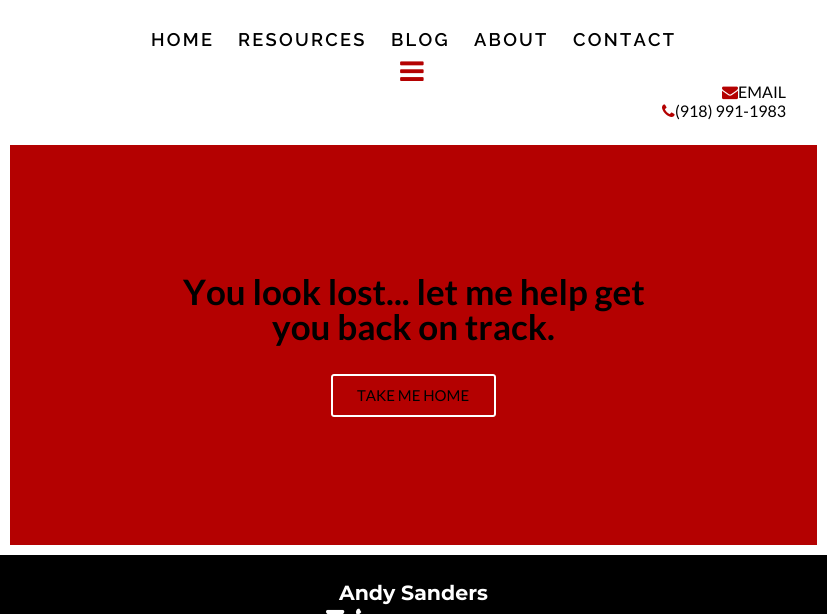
import math
import cairo


def write_spaced(ctx, x, y, s, letter, word):
	ctx.move_to(x, y)
	for ch in s:
		ctx.show_text(ch)
		ctx.rel_move_to(letter + word * (ch == ' '), 0)

def round_path(ctx, x, y, w, h, r):
	ctx.new_sub_path()
	for i, (u, v) in enumerate([(x + w - r, y + h - r), (x + r, y + h - r), (x + r, y + r), (x + w - r, y + r)]):
		ctx.arc(u, v, r, i * math.pi / 2, (i + 1) * math.pi / 2)
	ctx.close_path()

def paste(ctx, path, x, y, w, h):
	ctx.save()
	ctx.set_source_surface(cairo.ImageSurface.create_from_png(path), x, y)
	ctx.rectangle(x, y, w, h)
	ctx.fill()
	ctx.restore()

def draw(ctx):
	ctx.set_source_rgb(1, 1, 1)
	ctx.paint()
	ctx.select_font_face('Raleway SemiBold')
	ctx.set_font_size(18.25)
	ctx.set_source_rgb(0, 0, 0)
	for x, y, s in [
		(151, 46, 'HOME'),
		(238, 46, 'RESOURCES'),
		(391, 46, 'BLOG'),
		(474, 46, 'ABOUT'),
		(573, 46, 'CONTACT'),
	]:
		write_spaced(ctx, x, y, s, 2.25, 0)
	paste(ctx, 'media/1.png', 400, 61, 24, 20)
	paste(ctx, 'media/2.png', 722, 86, 16, 14)
	ctx.select_font_face('Lato')
	ctx.set_font_size(16)
	ctx.move_to(738, 98)
	ctx.show_text('EMAIL')
	paste(ctx, 'media/3.png', 662, 104, 13, 13)
	ctx.move_to(675, 117)
	ctx.show_text('(918) 991-1983')
	ctx.set_source_rgb(0.706, 0.004, 0.004)
	ctx.rectangle(10, 145, 807, 400)
	ctx.fill()
	ctx.select_font_face('Lato', cairo.FONT_SLANT_NORMAL, cairo.FONT_WEIGHT_BOLD)
	ctx.set_font_size(35)
	ctx.set_source_rgb(0, 0, 0)
	ctx.move_to(183, 305)
	ctx.show_text('You look lost... let me help get')
	ctx.move_to(272, 340)
	ctx.show_text('you back on track.')
	round_path(ctx, 332, 375, 163, 41, 2)
	ctx.set_source_rgb(1, 1, 1)
	ctx.stroke()
	ctx.select_font_face('Lato')
	ctx.set_font_size(15)
	ctx.set_source_rgb(0, 0, 0)
	ctx.move_to(357, 401)
	ctx.show_text('TAKE ME HOME')
	ctx.rectangle(0, 555, 827, 59)
	ctx.fill()
	ctx.select_font_face('Montserrat', cairo.FONT_SLANT_NORMAL, cairo.FONT_WEIGHT_BOLD)
	ctx.set_font_size(20.5)
	ctx.set_source_rgb(1, 1, 1)
	ctx.move_to(339, 600)
	ctx.show_text('Andy Sanders')
	paste(ctx, 'media/4.png', 326, 609, 19, 5)
	paste(ctx, 'media/5.png', 356, 608, 6, 6)


surface = cairo.ImageSurface(cairo.FORMAT_RGB24, 827, 614)
ctx = cairo.Context(surface)
options = cairo.FontOptions()
options.set_hint_metrics(cairo.HINT_METRICS_OFF)
options.set_hint_style(cairo.HINT_STYLE_NONE)
ctx.set_font_options(options)
ctx.set_miter_limit(4)
draw(ctx)
surface.write_to_png('image.png')
